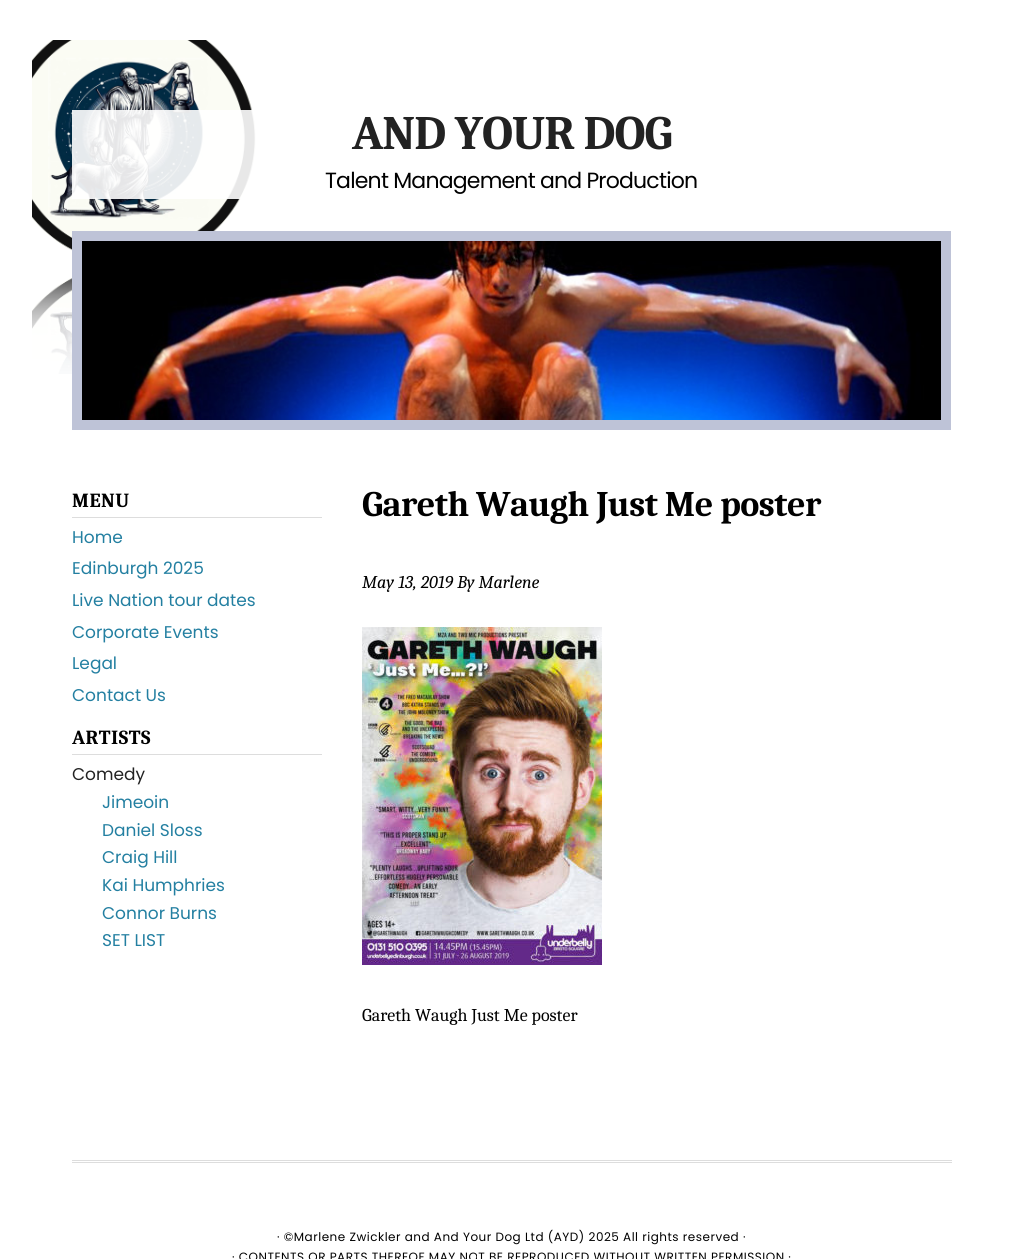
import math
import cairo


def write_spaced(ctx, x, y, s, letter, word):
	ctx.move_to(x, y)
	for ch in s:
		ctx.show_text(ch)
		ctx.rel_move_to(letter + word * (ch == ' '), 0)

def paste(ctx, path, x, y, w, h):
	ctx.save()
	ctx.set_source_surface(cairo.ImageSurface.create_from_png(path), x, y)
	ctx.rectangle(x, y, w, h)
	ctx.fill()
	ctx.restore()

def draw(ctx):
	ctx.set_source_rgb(1, 1, 1)
	ctx.paint()
	paste(ctx, 'media/1.png', 32, 40, 224, 334)
	ctx.set_source_rgba(1, 1, 1, 0.9)
	ctx.rectangle(72, 110, 184, 89)
	ctx.fill()
	ctx.select_font_face('Caladea', cairo.FONT_SLANT_NORMAL, cairo.FONT_WEIGHT_BOLD)
	ctx.set_font_size(48)
	ctx.set_source_rgb(0.133, 0.133, 0.133)
	write_spaced(ctx, 352, 149, 'AND YOUR DOG', -1, 0)
	ctx.select_font_face('Poppins')
	ctx.set_font_size(22)
	ctx.set_source_rgb(0, 0, 0)
	write_spaced(ctx, 325, 188, 'Talent Management and Production', -0.8, 0)
	ctx.rectangle(77, 236, 869, 189)
	ctx.set_source_rgb(0.745, 0.765, 0.843)
	ctx.set_line_width(10)
	ctx.stroke()
	paste(ctx, 'media/2.png', 82, 241, 859, 179)
	ctx.set_source_rgb(0.867, 0.867, 0.867)
	ctx.rectangle(72, 517, 250, 1)
	ctx.fill()
	ctx.select_font_face('Caladea', cairo.FONT_SLANT_NORMAL, cairo.FONT_WEIGHT_BOLD)
	ctx.set_font_size(20)
	ctx.set_source_rgb(0, 0, 0)
	write_spaced(ctx, 72, 507, 'MENU', 0.5, 0)
	ctx.select_font_face('Poppins')
	ctx.set_font_size(17)
	ctx.set_source_rgb(0.137, 0.498, 0.631)
	for x, y, s in [
		(72, 543, 'Home'),
		(72, 574, 'Edinburgh 2025'),
		(72, 606, 'Live Nation tour dates'),
		(72, 638, 'Corporate Events'),
		(72, 669, 'Legal'),
		(72, 701, 'Contact Us'),
	]:
		ctx.move_to(x, y)
		ctx.show_text(s)
	ctx.set_source_rgb(0.867, 0.867, 0.867)
	ctx.rectangle(72, 754, 250, 1)
	ctx.fill()
	ctx.select_font_face('Caladea', cairo.FONT_SLANT_NORMAL, cairo.FONT_WEIGHT_BOLD)
	ctx.set_font_size(20)
	ctx.set_source_rgb(0, 0, 0)
	write_spaced(ctx, 72, 744, 'ARTISTS', 0.5, 0)
	ctx.select_font_face('Poppins')
	ctx.set_font_size(17)
	ctx.set_source_rgb(0.133, 0.133, 0.133)
	ctx.move_to(72, 780)
	ctx.show_text('Comedy')
	ctx.set_source_rgb(0.137, 0.498, 0.631)
	for x, y, s in [
		(102, 808, 'Jimeoin'),
		(102, 836, 'Daniel Sloss'),
		(102, 863, 'Craig Hill'),
		(102, 891, 'Kai Humphries'),
		(102, 919, 'Connor Burns'),
		(102, 946, 'SET LIST'),
	]:
		ctx.move_to(x, y)
		ctx.show_text(s)
	ctx.select_font_face('Caladea', cairo.FONT_SLANT_NORMAL, cairo.FONT_WEIGHT_BOLD)
	ctx.set_font_size(36)
	ctx.set_source_rgb(0, 0, 0)
	write_spaced(ctx, 362, 516, 'Gareth Waugh Just Me poster', -0.5, 0)
	ctx.select_font_face('Caladea', cairo.FONT_SLANT_ITALIC)
	ctx.set_font_size(18)
	ctx.move_to(362, 588)
	ctx.show_text('May 13, 2019 By Marlene')
	paste(ctx, 'media/3.png', 362, 627, 240, 338)
	ctx.select_font_face('Caladea')
	ctx.move_to(362, 1021)
	ctx.show_text('Gareth Waugh Just Me poster')
	ctx.set_source_rgb(0.867, 0.867, 0.867)
	ctx.rectangle(72, 1160, 880, 1)
	ctx.fill()
	ctx.rectangle(72, 1162, 880, 1)
	ctx.fill()
	ctx.select_font_face('Poppins')
	ctx.set_font_size(12)
	ctx.set_source_rgb(0, 0, 0)
	write_spaced(ctx, 277, 1241, '· ©Marlene Zwickler and And Your Dog Ltd (AYD) 2025 All rights reserved ·', 0.5, 0)
	write_spaced(ctx, 232, 1261, '· CONTENTS OR PARTS THEREOF MAY NOT BE REPRODUCED WITHOUT WRITTEN PERMISSION ·', 0.5, 0)


surface = cairo.ImageSurface(cairo.FORMAT_RGB24, 1023, 1259)
ctx = cairo.Context(surface)
options = cairo.FontOptions()
options.set_hint_metrics(cairo.HINT_METRICS_OFF)
options.set_hint_style(cairo.HINT_STYLE_NONE)
ctx.set_font_options(options)
ctx.set_miter_limit(4)
draw(ctx)
surface.write_to_png('image.png')
